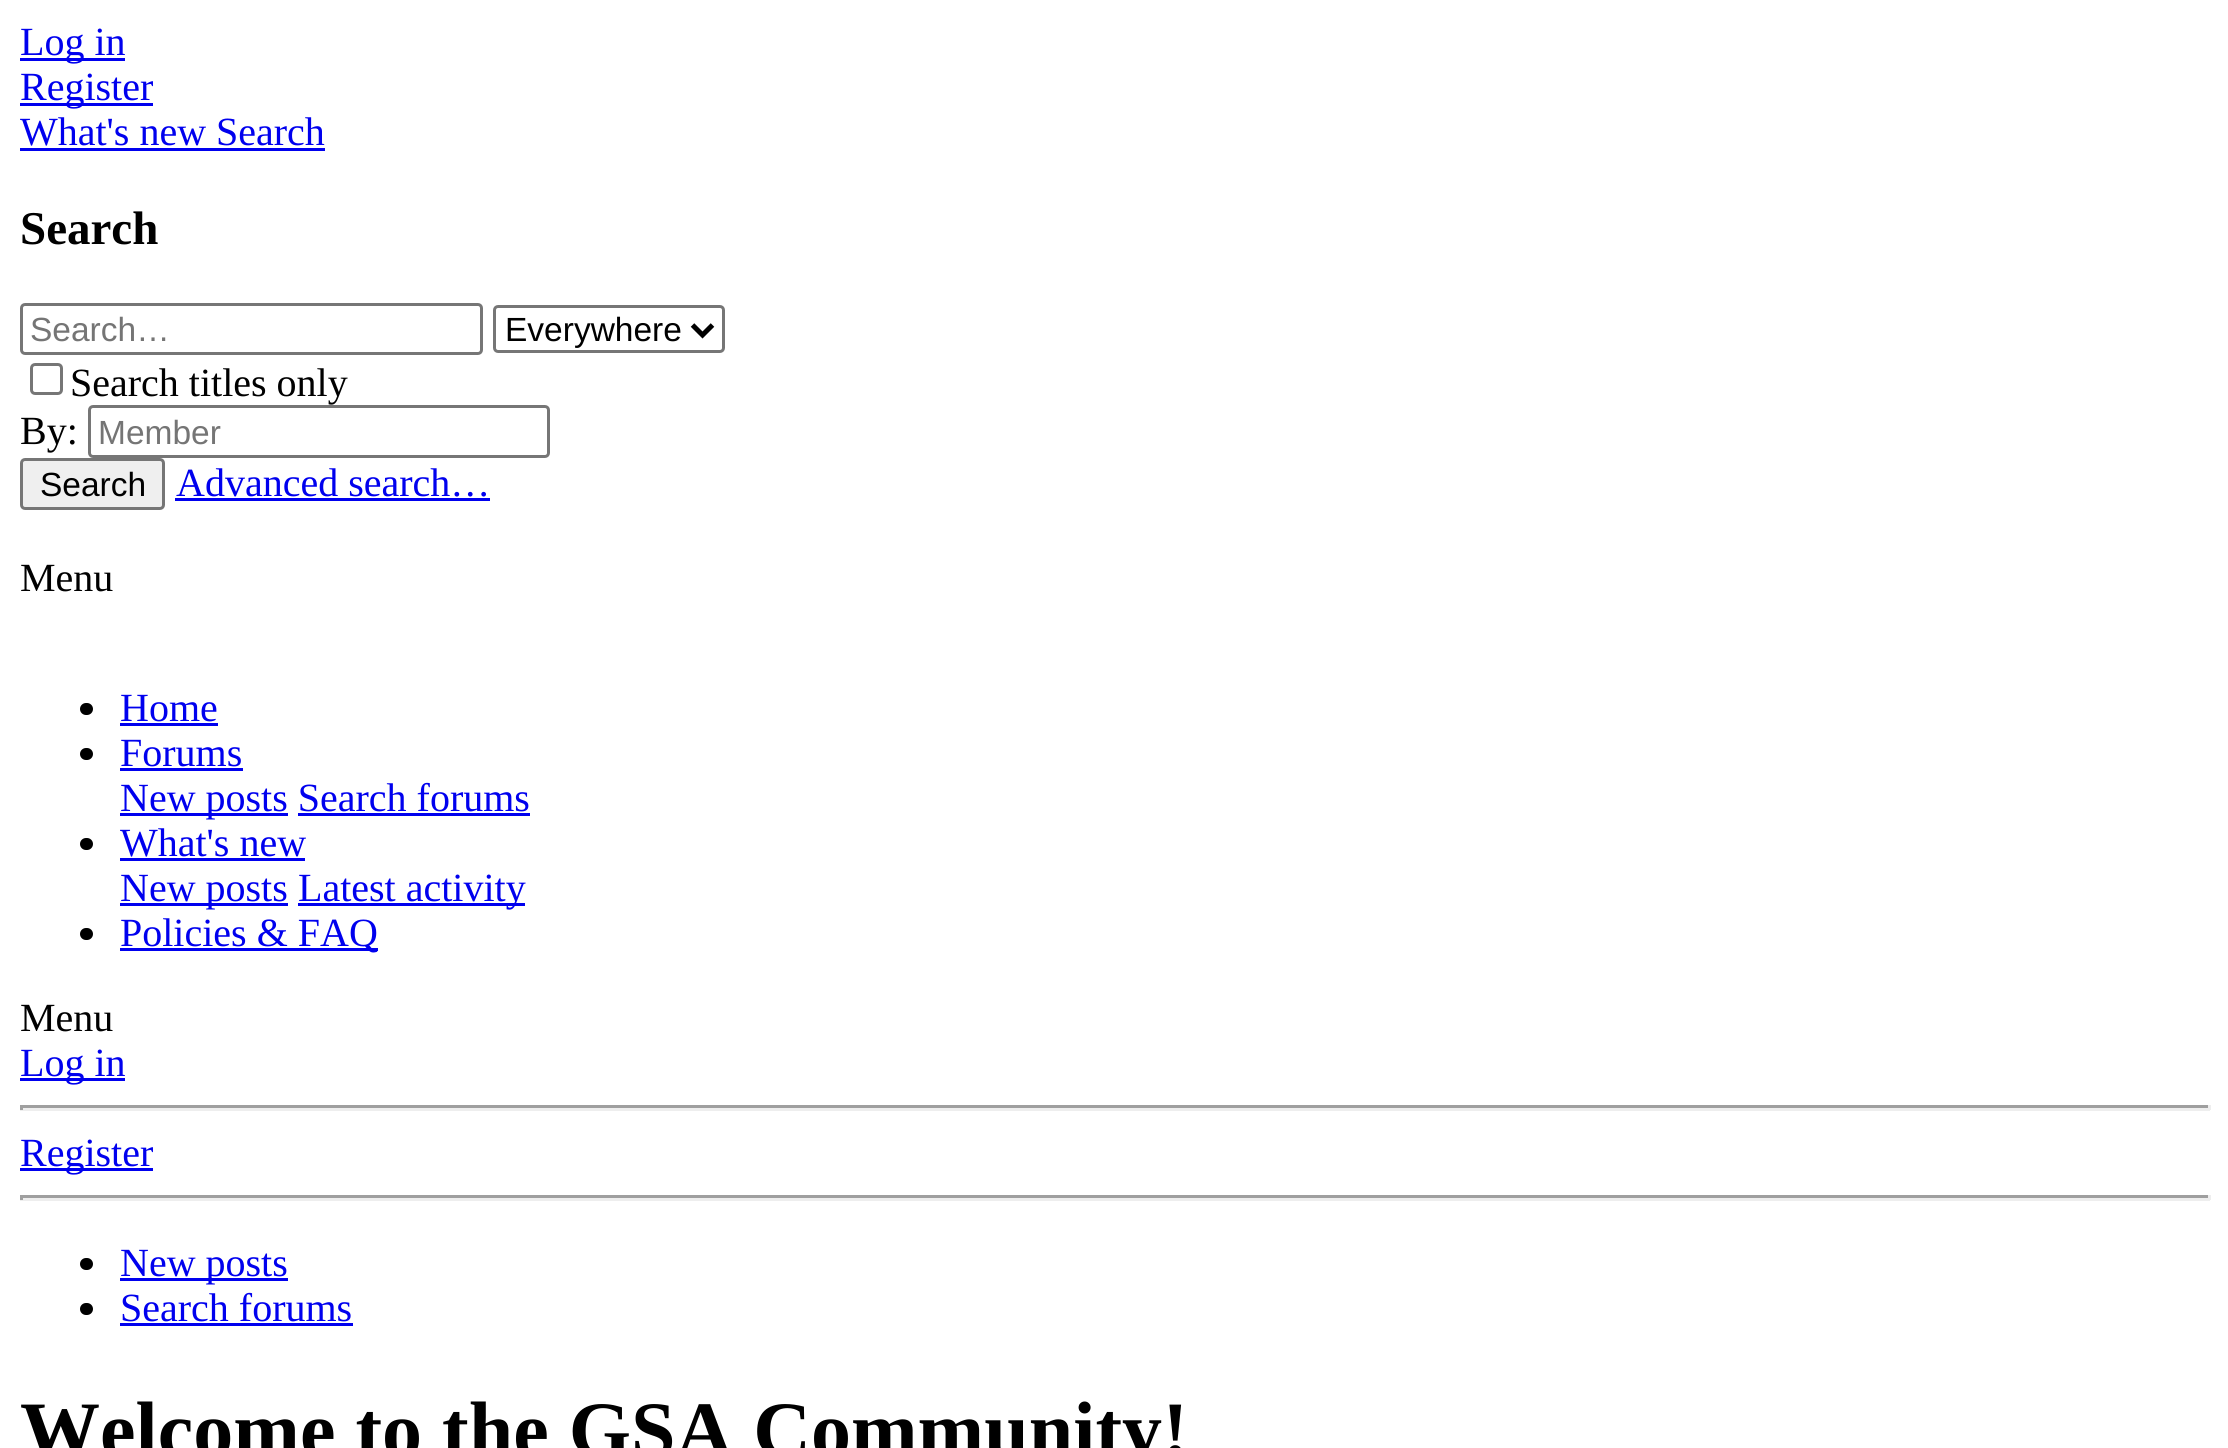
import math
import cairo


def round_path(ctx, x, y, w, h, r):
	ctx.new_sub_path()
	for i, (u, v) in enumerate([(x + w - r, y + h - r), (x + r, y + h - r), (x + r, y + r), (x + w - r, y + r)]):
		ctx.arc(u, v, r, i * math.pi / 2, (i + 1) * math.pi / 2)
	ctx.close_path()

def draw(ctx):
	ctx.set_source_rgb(1, 1, 1)
	ctx.paint()
	ctx.set_source_rgb(0, 0, 0.933)
	ctx.rectangle(20, 58, 105, 3)
	ctx.fill()
	ctx.select_font_face('Liberation Serif')
	ctx.set_font_size(40)
	ctx.move_to(20, 55)
	ctx.show_text('Log in')
	ctx.rectangle(20, 103, 133, 3)
	ctx.fill()
	ctx.move_to(20, 100)
	ctx.show_text('Register')
	ctx.move_to(20, 145)
	ctx.show_text('What\'s new Search')
	ctx.rectangle(20, 148, 305, 3)
	ctx.fill()
	ctx.select_font_face('Liberation Serif', cairo.FONT_SLANT_NORMAL, cairo.FONT_WEIGHT_BOLD)
	ctx.set_font_size(47)
	ctx.set_source_rgb(0, 0, 0)
	ctx.move_to(20, 244)
	ctx.show_text('Search')
	round_path(ctx, 21.5, 304.5, 460, 49, 3.5)
	ctx.set_source_rgb(0.463, 0.463, 0.463)
	ctx.set_line_width(3)
	ctx.stroke()
	ctx.select_font_face('Liberation Sans')
	ctx.set_font_size(33.5)
	ctx.set_source_rgb(0.459, 0.459, 0.459)
	ctx.move_to(30, 341)
	ctx.show_text('Search…')
	round_path(ctx, 494.5, 306.5, 229, 45, 3.5)
	ctx.set_source_rgb(0.463, 0.463, 0.463)
	ctx.stroke()
	ctx.new_path()
	ctx.move_to(692.5, 325)
	ctx.line_to(702.5, 335)
	ctx.line_to(712.5, 325)
	ctx.set_source_rgb(0, 0, 0)
	ctx.set_line_width(5)
	ctx.stroke()
	ctx.move_to(505, 341)
	ctx.show_text('Everywhere')
	round_path(ctx, 31.5, 364.5, 30, 29, 3.5)
	ctx.set_source_rgb(0.463, 0.463, 0.463)
	ctx.set_line_width(3)
	ctx.stroke()
	ctx.select_font_face('Liberation Serif')
	ctx.set_font_size(40)
	ctx.set_source_rgb(0, 0, 0)
	ctx.move_to(70, 396)
	ctx.show_text('Search titles only')
	ctx.move_to(20, 444)
	ctx.show_text('By:')
	round_path(ctx, 89.5, 406.5, 459, 50, 3.5)
	ctx.set_source_rgb(0.463, 0.463, 0.463)
	ctx.stroke()
	ctx.select_font_face('Liberation Sans')
	ctx.set_font_size(33.5)
	ctx.set_source_rgb(0.459, 0.459, 0.459)
	ctx.move_to(98, 444)
	ctx.show_text('Member')
	ctx.set_source_rgb(0.937, 0.937, 0.937)
	round_path(ctx, 21.5, 459.5, 142, 49, 3.5)
	ctx.fill_preserve()
	ctx.set_source_rgb(0.463, 0.463, 0.463)
	ctx.stroke()
	ctx.set_source_rgb(0, 0, 0)
	ctx.move_to(40, 496)
	ctx.show_text('Search')
	ctx.select_font_face('Liberation Serif')
	ctx.set_font_size(40)
	ctx.set_source_rgb(0, 0, 0.933)
	ctx.move_to(176, 496)
	ctx.show_text('Advanced search…')
	ctx.rectangle(175, 498, 315, 3)
	ctx.fill()
	ctx.set_source_rgb(0, 0, 0)
	ctx.move_to(20, 591)
	ctx.show_text('Menu')
	round_path(ctx, 80, 703, 13, 12, 6)
	ctx.fill()
	ctx.set_source_rgb(0, 0, 0.933)
	ctx.move_to(120, 721)
	ctx.show_text('Home')
	ctx.rectangle(120, 723, 98, 3)
	ctx.fill()
	ctx.set_source_rgb(0, 0, 0)
	round_path(ctx, 80, 748, 13, 12, 6)
	ctx.fill()
	ctx.set_source_rgb(0, 0, 0.933)
	ctx.move_to(120, 766)
	ctx.show_text('Forums')
	ctx.rectangle(120, 768, 123, 3)
	ctx.fill()
	ctx.rectangle(120, 813, 168, 3)
	ctx.fill()
	ctx.move_to(120, 811)
	ctx.show_text('New posts Search forums')
	ctx.rectangle(298, 813, 232, 3)
	ctx.fill()
	ctx.set_source_rgb(0, 0, 0)
	round_path(ctx, 80, 838, 13, 12, 6)
	ctx.fill()
	ctx.set_source_rgb(0, 0, 0.933)
	ctx.move_to(120, 856)
	ctx.show_text('What\'s new')
	ctx.rectangle(120, 858, 185, 3)
	ctx.fill()
	ctx.rectangle(120, 903, 168, 3)
	ctx.fill()
	ctx.move_to(120, 901)
	ctx.show_text('New posts')
	ctx.rectangle(298, 903, 227, 3)
	ctx.fill()
	ctx.move_to(298, 901)
	ctx.show_text('Latest activity')
	ctx.set_source_rgb(0, 0, 0)
	round_path(ctx, 80, 928, 13, 12, 6)
	ctx.fill()
	ctx.set_source_rgb(0, 0, 0.933)
	ctx.rectangle(120, 948, 258, 3)
	ctx.fill()
	ctx.move_to(120, 946)
	ctx.show_text('Policies & FAQ')
	ctx.set_source_rgb(0, 0, 0)
	ctx.move_to(20, 1031)
	ctx.show_text('Menu')
	ctx.set_source_rgb(0, 0, 0.933)
	ctx.rectangle(20, 1078, 105, 3)
	ctx.fill()
	ctx.move_to(20, 1076)
	ctx.show_text('Log in')
	ctx.set_source_rgb(0.624, 0.624, 0.624)
	ctx.rectangle(20, 1105, 2190, 3)
	ctx.fill()
	ctx.set_source_rgb(0.933, 0.933, 0.933)
	ctx.rectangle(2208, 1105, 3, 5)
	ctx.rectangle(20, 1108, 2190, 3)
	ctx.fill()
	ctx.set_source_rgb(0.624, 0.624, 0.624)
	ctx.rectangle(20, 1105, 3, 5)
	ctx.fill()
	ctx.set_source_rgb(0, 0, 0.933)
	ctx.rectangle(20, 1168, 133, 3)
	ctx.fill()
	ctx.move_to(20, 1166)
	ctx.show_text('Register')
	ctx.set_source_rgb(0.624, 0.624, 0.624)
	ctx.rectangle(20, 1195, 2190, 3)
	ctx.fill()
	ctx.set_source_rgb(0.933, 0.933, 0.933)
	ctx.rectangle(2208, 1195, 3, 5)
	ctx.rectangle(20, 1198, 2190, 3)
	ctx.fill()
	ctx.set_source_rgb(0.624, 0.624, 0.624)
	ctx.rectangle(20, 1195, 3, 5)
	ctx.fill()
	ctx.set_source_rgb(0, 0, 0)
	round_path(ctx, 80, 1258, 13, 12, 6)
	ctx.fill()
	ctx.set_source_rgb(0, 0, 0.933)
	ctx.rectangle(120, 1278, 168, 3)
	ctx.fill()
	ctx.move_to(120, 1276)
	ctx.show_text('New posts')
	ctx.set_source_rgb(0, 0, 0)
	round_path(ctx, 80, 1303, 13, 12, 6)
	ctx.fill()
	ctx.set_source_rgb(0, 0, 0.933)
	ctx.move_to(120, 1321)
	ctx.show_text('Search forums')
	ctx.rectangle(120, 1323, 233, 3)
	ctx.fill()
	ctx.select_font_face('Liberation Serif', cairo.FONT_SLANT_NORMAL, cairo.FONT_WEIGHT_BOLD)
	ctx.set_font_size(80)
	ctx.set_source_rgb(0, 0, 0)
	ctx.move_to(20, 1457)
	ctx.show_text('Welcome to the GSA Community!')


surface = cairo.ImageSurface(cairo.FORMAT_RGB24, 2228, 1448)
ctx = cairo.Context(surface)
options = cairo.FontOptions()
options.set_hint_metrics(cairo.HINT_METRICS_OFF)
options.set_hint_style(cairo.HINT_STYLE_NONE)
ctx.set_font_options(options)
ctx.set_miter_limit(4)
draw(ctx)
surface.write_to_png('image.png')
